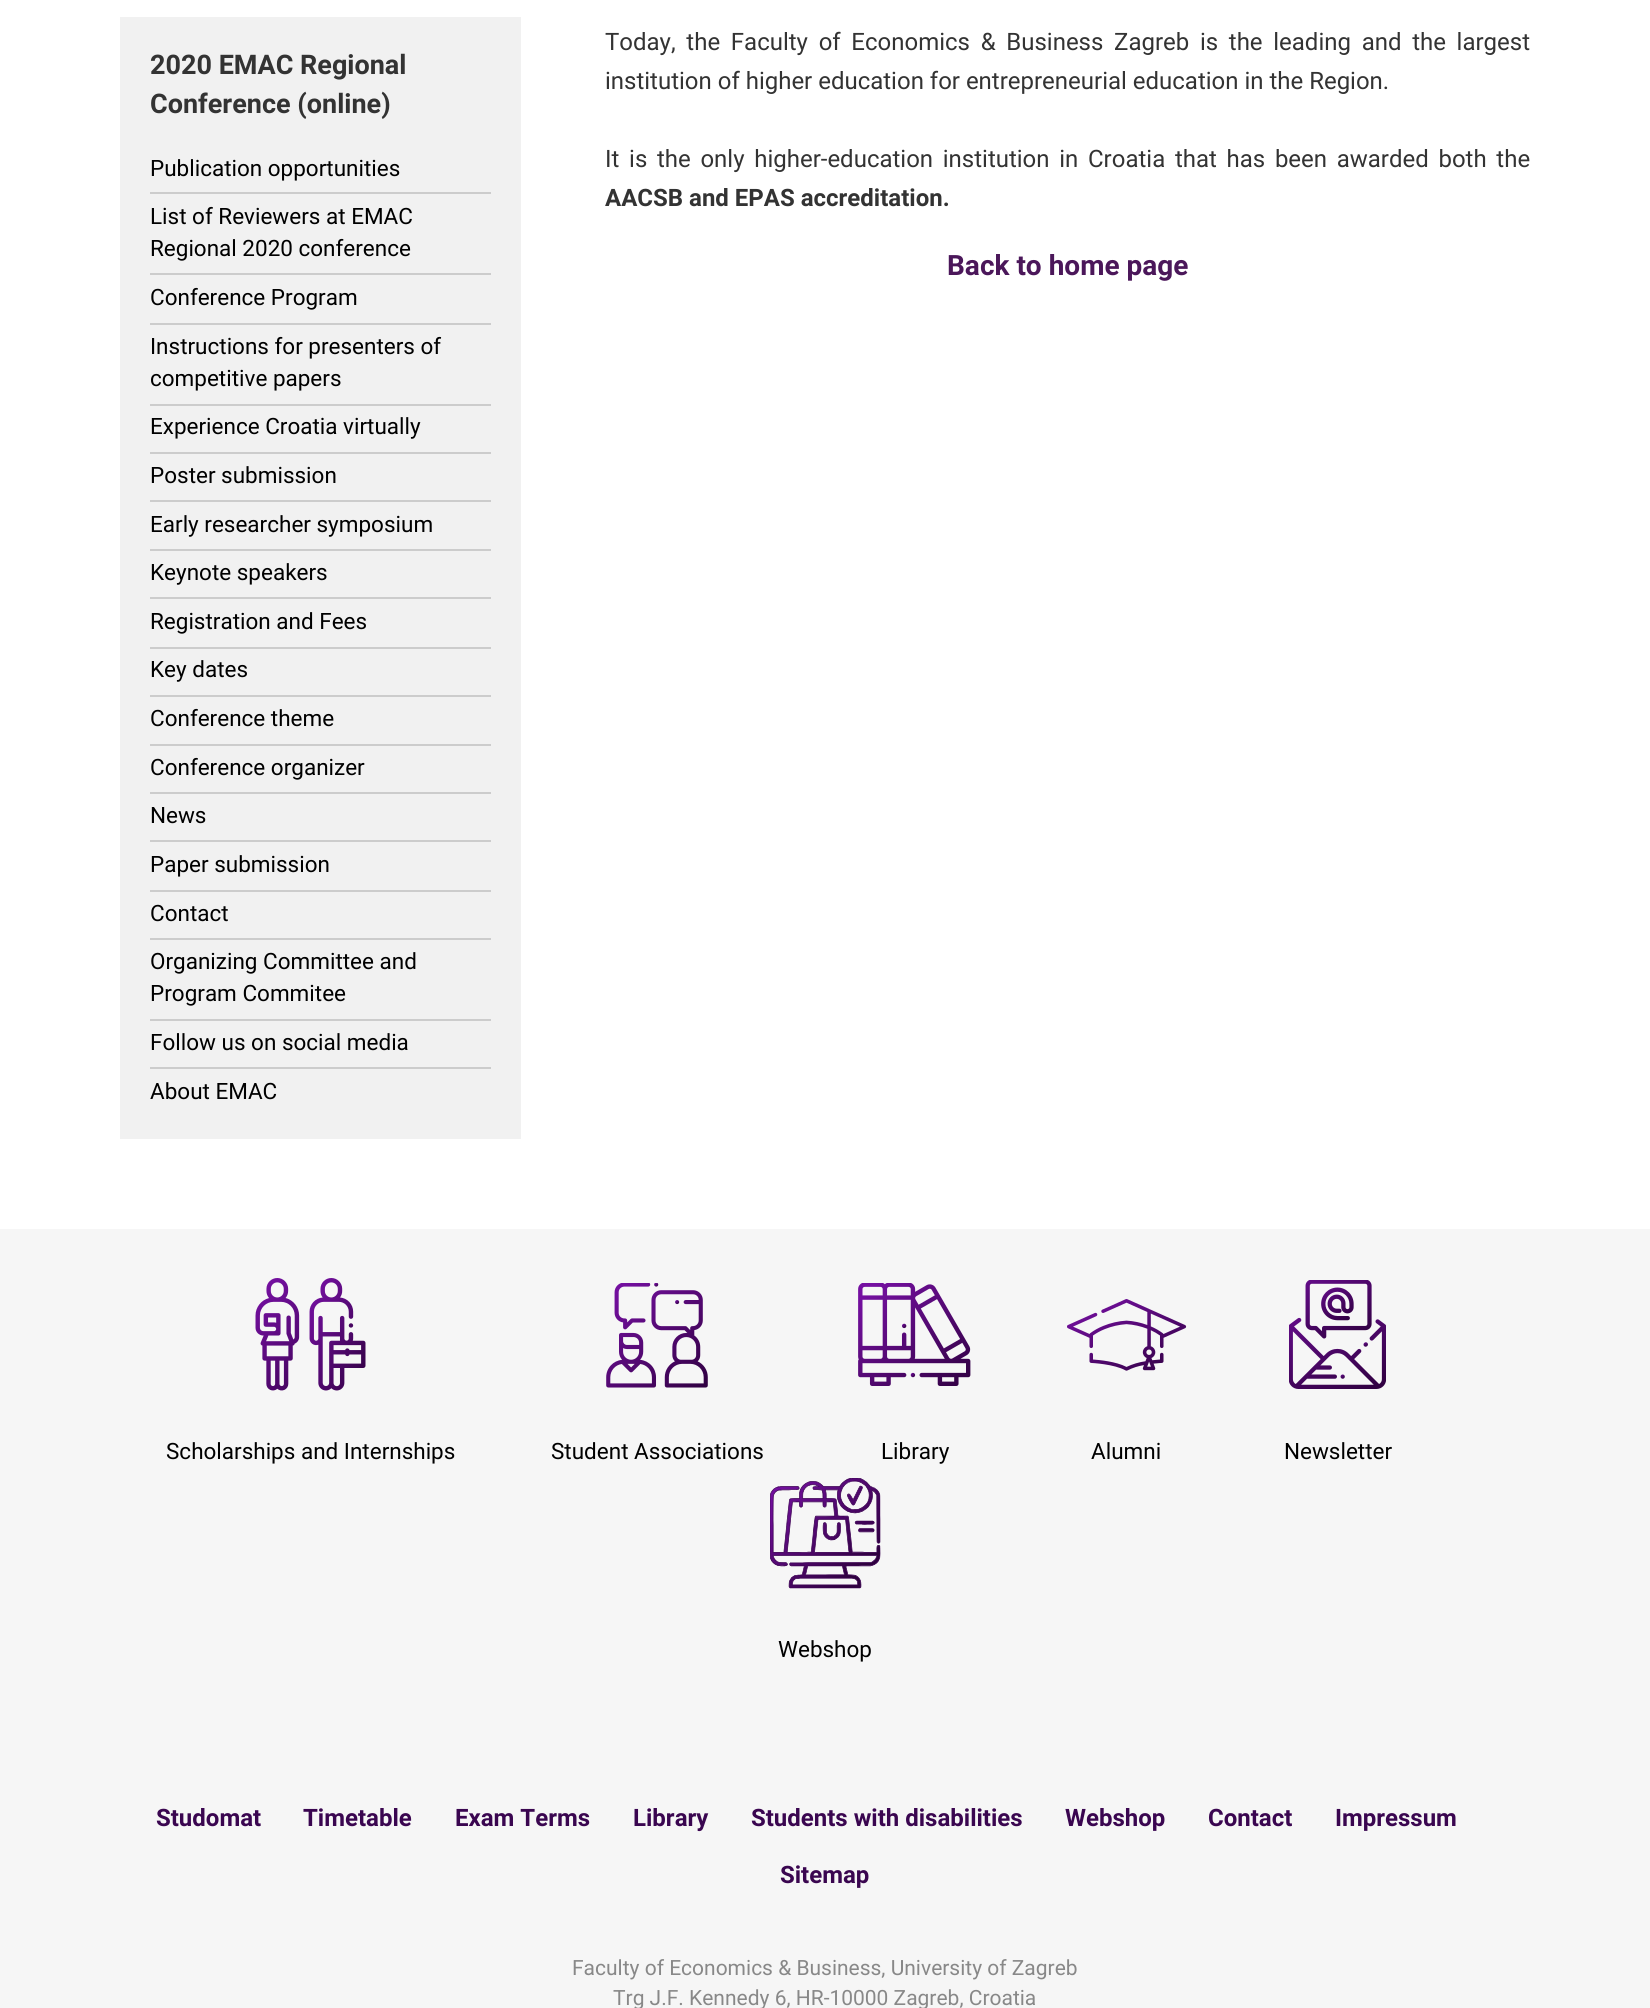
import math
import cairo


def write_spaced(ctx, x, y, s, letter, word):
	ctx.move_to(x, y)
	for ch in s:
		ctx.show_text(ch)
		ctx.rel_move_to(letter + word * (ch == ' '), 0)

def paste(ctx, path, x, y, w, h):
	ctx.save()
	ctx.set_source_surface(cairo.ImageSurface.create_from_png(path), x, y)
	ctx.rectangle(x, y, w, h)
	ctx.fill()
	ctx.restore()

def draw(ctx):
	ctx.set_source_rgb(1, 1, 1)
	ctx.paint()
	ctx.set_source_rgb(0.945, 0.945, 0.945)
	ctx.rectangle(120, 17, 401, 1122)
	ctx.fill()
	ctx.select_font_face('Roboto', cairo.FONT_SLANT_NORMAL, cairo.FONT_WEIGHT_BOLD)
	ctx.set_font_size(27)
	ctx.set_source_rgb(0.2, 0.2, 0.2)
	ctx.move_to(150, 74)
	ctx.show_text('2020 EMAC Regional')
	ctx.move_to(150, 113)
	ctx.show_text('Conference (online)')
	ctx.set_source_rgb(0.8, 0.8, 0.8)
	ctx.rectangle(150, 192, 341, 2)
	ctx.fill()
	ctx.select_font_face('Roboto')
	ctx.set_font_size(22.5)
	ctx.set_source_rgb(0, 0, 0)
	ctx.move_to(150, 176)
	ctx.show_text('Publication opportunities')
	ctx.set_source_rgb(0.8, 0.8, 0.8)
	ctx.rectangle(150, 273, 341, 2)
	ctx.fill()
	ctx.set_source_rgb(0, 0, 0)
	ctx.move_to(150, 224)
	ctx.show_text('List of Reviewers at EMAC')
	ctx.move_to(150, 256)
	ctx.show_text('Regional 2020 conference')
	ctx.set_source_rgb(0.8, 0.8, 0.8)
	ctx.rectangle(150, 323, 341, 2)
	ctx.fill()
	ctx.set_source_rgb(0, 0, 0)
	ctx.move_to(150, 305)
	ctx.show_text('Conference Program')
	ctx.set_source_rgb(0.8, 0.8, 0.8)
	ctx.rectangle(150, 404, 341, 2)
	ctx.fill()
	ctx.set_source_rgb(0, 0, 0)
	ctx.move_to(150, 354)
	ctx.show_text('Instructions for presenters of')
	ctx.move_to(150, 386)
	ctx.show_text('competitive papers')
	ctx.set_source_rgb(0.8, 0.8, 0.8)
	ctx.rectangle(150, 452, 341, 2)
	ctx.fill()
	ctx.set_source_rgb(0, 0, 0)
	ctx.move_to(150, 434)
	ctx.show_text('Experience Croatia virtually')
	ctx.set_source_rgb(0.8, 0.8, 0.8)
	ctx.rectangle(150, 500, 341, 2)
	ctx.fill()
	ctx.set_source_rgb(0, 0, 0)
	ctx.move_to(150, 483)
	ctx.show_text('Poster submission')
	ctx.set_source_rgb(0.8, 0.8, 0.8)
	ctx.rectangle(150, 549, 341, 2)
	ctx.fill()
	ctx.set_source_rgb(0, 0, 0)
	ctx.move_to(150, 532)
	ctx.show_text('Early researcher symposium')
	ctx.set_source_rgb(0.8, 0.8, 0.8)
	ctx.rectangle(150, 597, 341, 2)
	ctx.fill()
	ctx.set_source_rgb(0, 0, 0)
	ctx.move_to(150, 580)
	ctx.show_text('Keynote speakers')
	ctx.set_source_rgb(0.8, 0.8, 0.8)
	ctx.rectangle(150, 647, 341, 2)
	ctx.fill()
	ctx.set_source_rgb(0, 0, 0)
	ctx.move_to(150, 629)
	ctx.show_text('Registration and Fees')
	ctx.set_source_rgb(0.8, 0.8, 0.8)
	ctx.rectangle(150, 695, 341, 2)
	ctx.fill()
	ctx.set_source_rgb(0, 0, 0)
	ctx.move_to(150, 677)
	ctx.show_text('Key dates')
	ctx.set_source_rgb(0.8, 0.8, 0.8)
	ctx.rectangle(150, 744, 341, 2)
	ctx.fill()
	ctx.set_source_rgb(0, 0, 0)
	ctx.move_to(150, 726)
	ctx.show_text('Conference theme')
	ctx.set_source_rgb(0.8, 0.8, 0.8)
	ctx.rectangle(150, 792, 341, 2)
	ctx.fill()
	ctx.set_source_rgb(0, 0, 0)
	ctx.move_to(150, 775)
	ctx.show_text('Conference organizer')
	ctx.set_source_rgb(0.8, 0.8, 0.8)
	ctx.rectangle(150, 840, 341, 2)
	ctx.fill()
	ctx.set_source_rgb(0, 0, 0)
	ctx.move_to(150, 823)
	ctx.show_text('News')
	ctx.set_source_rgb(0.8, 0.8, 0.8)
	ctx.rectangle(150, 890, 341, 2)
	ctx.fill()
	ctx.set_source_rgb(0, 0, 0)
	ctx.move_to(150, 872)
	ctx.show_text('Paper submission')
	ctx.set_source_rgb(0.8, 0.8, 0.8)
	ctx.rectangle(150, 938, 341, 2)
	ctx.fill()
	ctx.set_source_rgb(0, 0, 0)
	ctx.move_to(150, 921)
	ctx.show_text('Contact')
	ctx.set_source_rgb(0.8, 0.8, 0.8)
	ctx.rectangle(150, 1019, 341, 2)
	ctx.fill()
	ctx.set_source_rgb(0, 0, 0)
	ctx.move_to(150, 969)
	ctx.show_text('Organizing Committee and')
	ctx.move_to(150, 1001)
	ctx.show_text('Program Commitee')
	ctx.set_source_rgb(0.8, 0.8, 0.8)
	ctx.rectangle(150, 1067, 341, 2)
	ctx.fill()
	ctx.set_source_rgb(0, 0, 0)
	ctx.move_to(150, 1050)
	ctx.show_text('Follow us on social media')
	ctx.move_to(150, 1099)
	ctx.show_text('About EMAC')
	ctx.set_font_size(24)
	ctx.set_source_rgb(0.2, 0.2, 0.2)
	write_spaced(ctx, 605, 50, 'Today, the Faculty of Economics & Business Zagreb is the leading and the largest', 0, 4.75)
	ctx.move_to(605, 89)
	ctx.show_text('institution of higher education for entrepreneurial education in the Region.')
	write_spaced(ctx, 605, 167, 'It is the only higher-education institution in Croatia that has been awarded both the', 0, 3.75)
	ctx.select_font_face('Roboto', cairo.FONT_SLANT_NORMAL, cairo.FONT_WEIGHT_BOLD)
	ctx.move_to(605, 206)
	ctx.show_text('AACSB and EPAS accreditation.')
	ctx.set_font_size(28)
	ctx.set_source_rgb(0.294, 0.09, 0.353)
	ctx.move_to(947, 275)
	ctx.show_text('Back to home page')
	ctx.set_source_rgb(0.961, 0.961, 0.961)
	ctx.rectangle(0, 1229, 1650, 779)
	ctx.fill()
	paste(ctx, 'media/1.png', 255, 1278, 111, 113)
	ctx.select_font_face('Roboto')
	ctx.set_font_size(22.5)
	ctx.set_source_rgb(0, 0, 0)
	ctx.move_to(166, 1459)
	ctx.show_text('Scholarships and Internships')
	paste(ctx, 'media/2.png', 606, 1283, 102, 105)
	ctx.move_to(551, 1459)
	ctx.show_text('Student Associations')
	paste(ctx, 'media/3.png', 858, 1283, 113, 103)
	ctx.move_to(881, 1459)
	ctx.show_text('Library')
	paste(ctx, 'media/4.png', 1067, 1299, 120, 72)
	ctx.move_to(1091, 1459)
	ctx.show_text('Alumni')
	paste(ctx, 'media/5.png', 1289, 1280, 97, 109)
	ctx.move_to(1284, 1459)
	ctx.show_text('Newsletter')
	paste(ctx, 'media/6.png', 770, 1478, 111, 111)
	ctx.move_to(778, 1657)
	ctx.show_text('Webshop')
	ctx.select_font_face('Roboto', cairo.FONT_SLANT_NORMAL, cairo.FONT_WEIGHT_BOLD)
	ctx.set_font_size(24)
	ctx.set_source_rgb(0.227, 0.027, 0.314)
	for x, y, s in [
		(156, 1826, 'Studomat'),
		(303, 1826, 'Timetable'),
		(455, 1826, 'Exam Terms'),
		(633, 1826, 'Library'),
		(751, 1826, 'Students with disabilities'),
		(1065, 1826, 'Webshop'),
		(1208, 1826, 'Contact'),
		(1335, 1826, 'Impressum'),
		(780, 1883, 'Sitemap'),
	]:
		ctx.move_to(x, y)
		ctx.show_text(s)
	ctx.select_font_face('Roboto')
	ctx.set_font_size(21)
	ctx.set_source_rgb(0.533, 0.533, 0.533)
	ctx.move_to(572, 1975)
	ctx.show_text('Faculty of Economics & Business, University of Zagreb')
	ctx.move_to(613, 2005)
	ctx.show_text('Trg J.F. Kennedy 6, HR-10000 Zagreb, Croatia')


surface = cairo.ImageSurface(cairo.FORMAT_RGB24, 1650, 2008)
ctx = cairo.Context(surface)
options = cairo.FontOptions()
options.set_hint_metrics(cairo.HINT_METRICS_OFF)
options.set_hint_style(cairo.HINT_STYLE_NONE)
ctx.set_font_options(options)
ctx.set_miter_limit(4)
draw(ctx)
surface.write_to_png('image.png')
